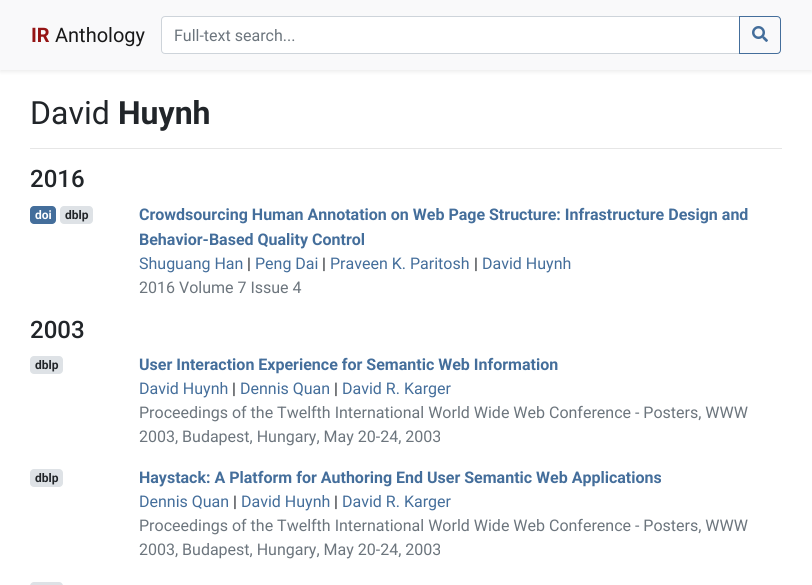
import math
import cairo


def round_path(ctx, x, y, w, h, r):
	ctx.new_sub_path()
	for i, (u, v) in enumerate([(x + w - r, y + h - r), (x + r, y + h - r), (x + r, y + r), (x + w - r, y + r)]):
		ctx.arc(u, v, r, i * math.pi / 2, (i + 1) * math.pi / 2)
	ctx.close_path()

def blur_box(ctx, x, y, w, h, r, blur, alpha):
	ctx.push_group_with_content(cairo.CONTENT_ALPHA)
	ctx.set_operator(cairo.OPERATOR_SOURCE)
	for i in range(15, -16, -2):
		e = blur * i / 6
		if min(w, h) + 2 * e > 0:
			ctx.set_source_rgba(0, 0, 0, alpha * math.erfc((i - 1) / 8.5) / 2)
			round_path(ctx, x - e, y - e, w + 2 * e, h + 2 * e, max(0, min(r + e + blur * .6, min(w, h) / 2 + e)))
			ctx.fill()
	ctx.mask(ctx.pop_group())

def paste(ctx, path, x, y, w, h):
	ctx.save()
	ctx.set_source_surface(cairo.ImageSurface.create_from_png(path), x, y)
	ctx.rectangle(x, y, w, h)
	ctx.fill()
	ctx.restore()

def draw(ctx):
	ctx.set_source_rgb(1, 1, 1)
	ctx.paint()
	ctx.set_source_rgb(0, 0, 0)
	blur_box(ctx, 0, 2, 812, 70, 0, 2, 0.07)
	ctx.set_source_rgb(0.973, 0.976, 0.98)
	ctx.rectangle(0, 0, 812, 70)
	ctx.fill()
	ctx.select_font_face('Roboto', cairo.FONT_SLANT_NORMAL, cairo.FONT_WEIGHT_BOLD)
	ctx.set_font_size(20)
	ctx.set_source_rgb(0.584, 0.082, 0.082)
	ctx.move_to(31, 42)
	ctx.show_text('IR')
	ctx.select_font_face('Roboto')
	ctx.set_source_rgb(0.098, 0.098, 0.098)
	ctx.move_to(55, 42)
	ctx.show_text('Anthology')
	ctx.set_source_rgb(1, 1, 1)
	ctx.new_path()
	ctx.move_to(165, 16.5)
	ctx.line_to(739.5, 16.5)
	ctx.line_to(739.5, 53.5)
	ctx.line_to(165, 53.5)
	ctx.curve_to(163, 53.5, 161.5, 52, 161.5, 50)
	ctx.line_to(161.5, 20)
	ctx.curve_to(161.5, 18, 163, 16.5, 165, 16.5)
	ctx.close_path()
	ctx.fill_preserve()
	ctx.set_source_rgb(0.808, 0.831, 0.855)
	ctx.set_line_width(1)
	ctx.stroke()
	ctx.set_font_size(16)
	ctx.set_source_rgb(0.424, 0.459, 0.49)
	ctx.move_to(174, 41)
	ctx.show_text('Full-text search...')
	ctx.new_path()
	ctx.move_to(739.5, 16.5)
	ctx.line_to(777, 16.5)
	ctx.curve_to(779, 16.5, 780.5, 18, 780.5, 20)
	ctx.line_to(780.5, 50)
	ctx.curve_to(780.5, 52, 779, 53.5, 777, 53.5)
	ctx.line_to(739.5, 53.5)
	ctx.close_path()
	ctx.set_source_rgb(0.267, 0.431, 0.608)
	ctx.stroke()
	paste(ctx, 'media/1.png', 752, 26, 16, 16)
	ctx.set_font_size(32)
	ctx.set_source_rgb(0.129, 0.145, 0.161)
	ctx.move_to(30, 124)
	ctx.show_text('David')
	ctx.select_font_face('Roboto', cairo.FONT_SLANT_NORMAL, cairo.FONT_WEIGHT_BOLD)
	ctx.move_to(118, 124)
	ctx.show_text('Huynh')
	ctx.set_source_rgb(0.902, 0.902, 0.902)
	ctx.rectangle(30, 148, 752, 1)
	ctx.fill()
	ctx.select_font_face('Roboto Medium')
	ctx.set_font_size(24)
	ctx.set_source_rgb(0.129, 0.145, 0.161)
	ctx.move_to(30, 187)
	ctx.show_text('2016')
	ctx.set_source_rgb(0.267, 0.431, 0.608)
	round_path(ctx, 30, 206, 26, 18, 4)
	ctx.fill()
	ctx.select_font_face('Roboto', cairo.FONT_SLANT_NORMAL, cairo.FONT_WEIGHT_BOLD)
	ctx.set_font_size(12)
	ctx.set_source_rgb(1, 1, 1)
	ctx.move_to(35, 219)
	ctx.show_text('doi')
	ctx.set_source_rgb(0.871, 0.886, 0.902)
	round_path(ctx, 60, 206, 33, 18, 4)
	ctx.fill()
	ctx.set_source_rgb(0.129, 0.145, 0.161)
	ctx.move_to(65, 219)
	ctx.show_text('dblp')
	ctx.set_font_size(16)
	ctx.set_source_rgb(0.267, 0.431, 0.608)
	ctx.move_to(139, 220)
	ctx.show_text('Crowdsourcing Human Annotation on Web Page Structure: Infrastructure Design and')
	ctx.move_to(139, 245)
	ctx.show_text('Behavior-Based Quality Control')
	ctx.select_font_face('Roboto')
	ctx.move_to(139, 269)
	ctx.show_text('Shuguang Han')
	ctx.set_source_rgb(0.129, 0.145, 0.161)
	ctx.move_to(247, 269)
	ctx.show_text('|')
	ctx.set_source_rgb(0.267, 0.431, 0.608)
	ctx.move_to(255, 269)
	ctx.show_text('Peng Dai')
	ctx.set_source_rgb(0.129, 0.145, 0.161)
	ctx.move_to(322, 269)
	ctx.show_text('|')
	ctx.set_source_rgb(0.267, 0.431, 0.608)
	ctx.move_to(330, 269)
	ctx.show_text('Praveen K. Paritosh')
	ctx.set_source_rgb(0.129, 0.145, 0.161)
	ctx.move_to(474, 269)
	ctx.show_text('|')
	ctx.set_source_rgb(0.267, 0.431, 0.608)
	ctx.move_to(482, 269)
	ctx.show_text('David Huynh')
	ctx.set_source_rgb(0.424, 0.459, 0.49)
	ctx.move_to(139, 293)
	ctx.show_text('2016 Volume 7 Issue 4')
	ctx.select_font_face('Roboto Medium')
	ctx.set_font_size(24)
	ctx.set_source_rgb(0.129, 0.145, 0.161)
	ctx.move_to(30, 338)
	ctx.show_text('2003')
	ctx.set_source_rgb(0.871, 0.886, 0.902)
	round_path(ctx, 30, 356, 33, 18, 4)
	ctx.fill()
	ctx.select_font_face('Roboto', cairo.FONT_SLANT_NORMAL, cairo.FONT_WEIGHT_BOLD)
	ctx.set_font_size(12)
	ctx.set_source_rgb(0.129, 0.145, 0.161)
	ctx.move_to(35, 369)
	ctx.show_text('dblp')
	ctx.set_font_size(16)
	ctx.set_source_rgb(0.267, 0.431, 0.608)
	ctx.move_to(139, 370)
	ctx.show_text('User Interaction Experience for Semantic Web Information')
	ctx.select_font_face('Roboto')
	ctx.move_to(139, 394)
	ctx.show_text('David Huynh')
	ctx.set_source_rgb(0.129, 0.145, 0.161)
	ctx.move_to(232, 394)
	ctx.show_text('|')
	ctx.set_source_rgb(0.267, 0.431, 0.608)
	ctx.move_to(240, 394)
	ctx.show_text('Dennis Quan')
	ctx.set_source_rgb(0.129, 0.145, 0.161)
	ctx.move_to(334, 394)
	ctx.show_text('|')
	ctx.set_source_rgb(0.267, 0.431, 0.608)
	ctx.move_to(342, 394)
	ctx.show_text('David R. Karger')
	ctx.set_source_rgb(0.424, 0.459, 0.49)
	ctx.move_to(139, 418)
	ctx.show_text('Proceedings of the Twelfth International World Wide Web Conference - Posters, WWW')
	ctx.move_to(139, 442)
	ctx.show_text('2003, Budapest, Hungary, May 20-24, 2003')
	ctx.set_source_rgb(0.871, 0.886, 0.902)
	round_path(ctx, 30, 469, 33, 18, 4)
	ctx.fill()
	ctx.select_font_face('Roboto', cairo.FONT_SLANT_NORMAL, cairo.FONT_WEIGHT_BOLD)
	ctx.set_font_size(12)
	ctx.set_source_rgb(0.129, 0.145, 0.161)
	ctx.move_to(35, 482)
	ctx.show_text('dblp')
	ctx.set_font_size(16)
	ctx.set_source_rgb(0.267, 0.431, 0.608)
	ctx.move_to(139, 483)
	ctx.show_text('Haystack: A Platform for Authoring End User Semantic Web Applications')
	ctx.select_font_face('Roboto')
	ctx.move_to(139, 507)
	ctx.show_text('Dennis Quan')
	ctx.set_source_rgb(0.129, 0.145, 0.161)
	ctx.move_to(233, 507)
	ctx.show_text('|')
	ctx.set_source_rgb(0.267, 0.431, 0.608)
	ctx.move_to(241, 507)
	ctx.show_text('David Huynh')
	ctx.set_source_rgb(0.129, 0.145, 0.161)
	ctx.move_to(334, 507)
	ctx.show_text('|')
	ctx.set_source_rgb(0.267, 0.431, 0.608)
	ctx.move_to(342, 507)
	ctx.show_text('David R. Karger')
	ctx.set_source_rgb(0.424, 0.459, 0.49)
	ctx.move_to(139, 531)
	ctx.show_text('Proceedings of the Twelfth International World Wide Web Conference - Posters, WWW')
	ctx.move_to(139, 555)
	ctx.show_text('2003, Budapest, Hungary, May 20-24, 2003')
	ctx.set_source_rgb(0.871, 0.886, 0.902)
	round_path(ctx, 30, 582, 33, 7, 4)
	ctx.fill()


surface = cairo.ImageSurface(cairo.FORMAT_RGB24, 812, 585)
ctx = cairo.Context(surface)
options = cairo.FontOptions()
options.set_hint_metrics(cairo.HINT_METRICS_OFF)
options.set_hint_style(cairo.HINT_STYLE_NONE)
ctx.set_font_options(options)
ctx.set_miter_limit(4)
draw(ctx)
surface.write_to_png('image.png')
